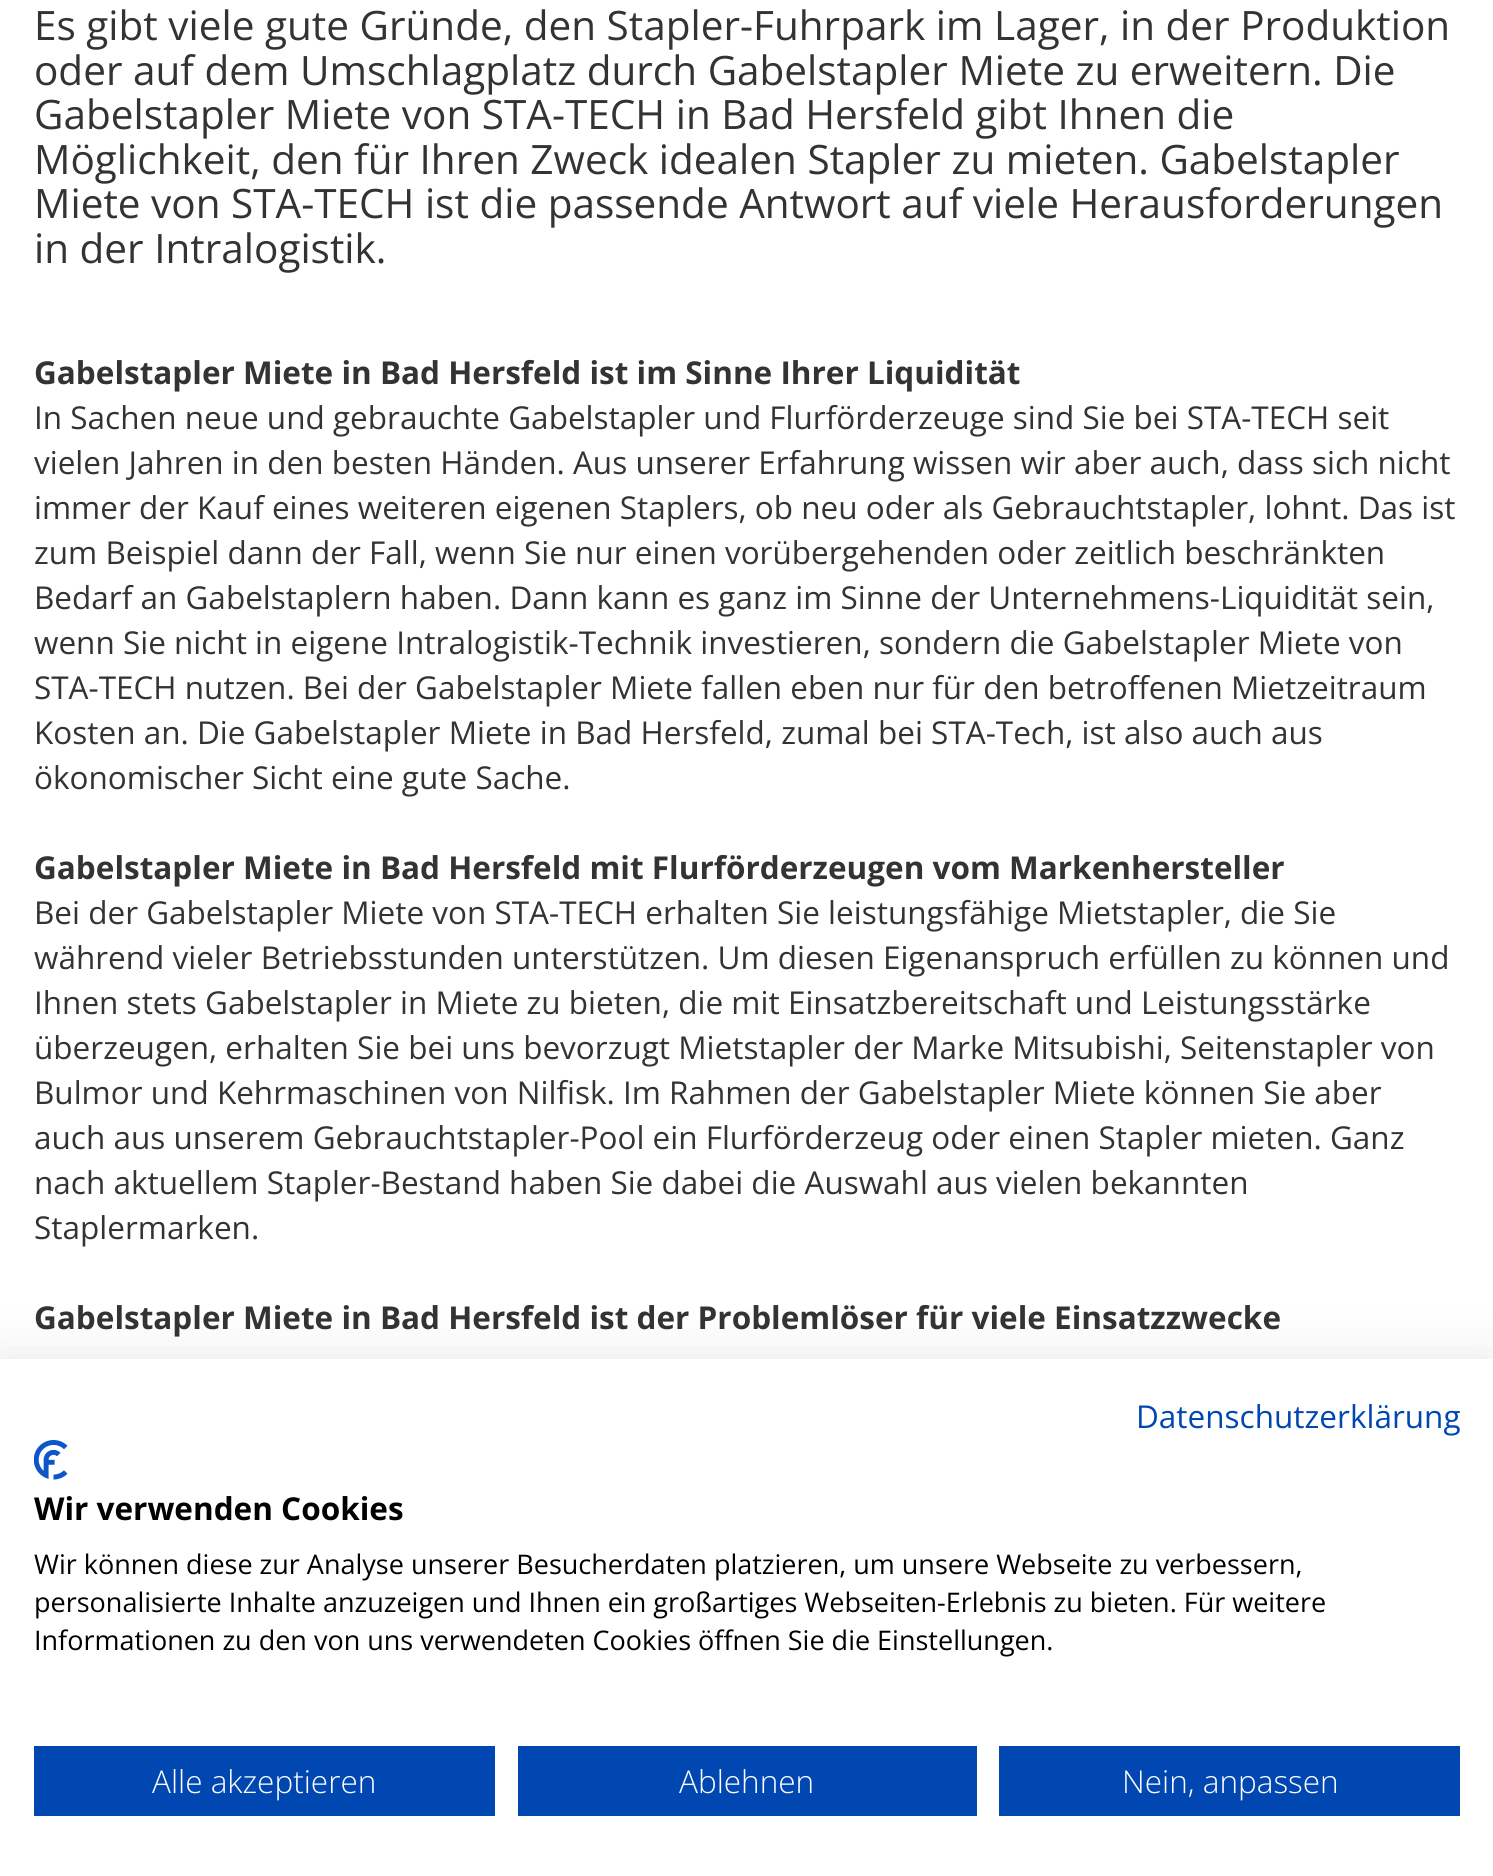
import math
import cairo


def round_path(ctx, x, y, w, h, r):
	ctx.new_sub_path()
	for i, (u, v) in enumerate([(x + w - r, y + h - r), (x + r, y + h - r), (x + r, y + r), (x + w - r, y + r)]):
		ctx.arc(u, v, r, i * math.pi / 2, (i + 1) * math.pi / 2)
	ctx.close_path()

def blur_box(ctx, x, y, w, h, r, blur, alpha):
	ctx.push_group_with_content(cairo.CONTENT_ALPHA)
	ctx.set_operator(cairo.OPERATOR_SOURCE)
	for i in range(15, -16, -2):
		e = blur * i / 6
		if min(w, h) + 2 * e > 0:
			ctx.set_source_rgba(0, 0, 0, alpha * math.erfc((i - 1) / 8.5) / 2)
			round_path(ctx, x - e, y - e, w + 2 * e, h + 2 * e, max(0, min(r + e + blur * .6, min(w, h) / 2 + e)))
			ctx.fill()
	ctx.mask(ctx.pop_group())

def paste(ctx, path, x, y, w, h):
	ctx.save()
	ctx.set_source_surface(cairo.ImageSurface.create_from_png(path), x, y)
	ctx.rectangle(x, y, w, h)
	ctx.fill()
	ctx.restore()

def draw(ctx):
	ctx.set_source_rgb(1, 1, 1)
	ctx.paint()
	ctx.select_font_face('Open Sans')
	ctx.set_font_size(40.5)
	ctx.set_source_rgb(0.2, 0.2, 0.2)
	for x, y, s in [
		(34, 40, 'Es gibt viele gute Gründe, den Stapler-Fuhrpark im Lager, in der Produktion'),
		(34, 85, 'oder auf dem Umschlagplatz durch Gabelstapler Miete zu erweitern. Die'),
		(34, 129, 'Gabelstapler Miete von STA-TECH in Bad Hersfeld gibt Ihnen die'),
		(34, 174, 'Möglichkeit, den für Ihren Zweck idealen Stapler zu mieten. Gabelstapler'),
		(34, 218, 'Miete von STA-TECH ist die passende Antwort auf viele Herausforderungen'),
		(34, 263, 'in der Intralogistik.'),
	]:
		ctx.move_to(x, y)
		ctx.show_text(s)
	ctx.select_font_face('Open Sans', cairo.FONT_SLANT_NORMAL, cairo.FONT_WEIGHT_BOLD)
	ctx.set_font_size(31.5)
	ctx.move_to(34, 384)
	ctx.show_text('Gabelstapler Miete in Bad Hersfeld ist im Sinne Ihrer Liquidität')
	ctx.select_font_face('Open Sans')
	for x, y, s in [
		(34, 429, 'In Sachen neue und gebrauchte Gabelstapler und Flurförderzeuge sind Sie bei STA-TECH seit'),
		(34, 474, 'vielen Jahren in den besten Händen. Aus unserer Erfahrung wissen wir aber auch, dass sich nicht'),
		(34, 519, 'immer der Kauf eines weiteren eigenen Staplers, ob neu oder als Gebrauchtstapler, lohnt. Das ist'),
		(34, 564, 'zum Beispiel dann der Fall, wenn Sie nur einen vorübergehenden oder zeitlich beschränkten'),
		(34, 609, 'Bedarf an Gabelstaplern haben. Dann kann es ganz im Sinne der Unternehmens-Liquidität sein,'),
		(34, 654, 'wenn Sie nicht in eigene Intralogistik-Technik investieren, sondern die Gabelstapler Miete von'),
		(34, 699, 'STA-TECH nutzen. Bei der Gabelstapler Miete fallen eben nur für den betroffenen Mietzeitraum'),
		(34, 744, 'Kosten an. Die Gabelstapler Miete in Bad Hersfeld, zumal bei STA-Tech, ist also auch aus'),
		(34, 789, 'ökonomischer Sicht eine gute Sache.'),
	]:
		ctx.move_to(x, y)
		ctx.show_text(s)
	ctx.select_font_face('Open Sans', cairo.FONT_SLANT_NORMAL, cairo.FONT_WEIGHT_BOLD)
	ctx.move_to(34, 879)
	ctx.show_text('Gabelstapler Miete in Bad Hersfeld mit Flurförderzeugen vom Markenhersteller')
	ctx.select_font_face('Open Sans')
	for x, y, s in [
		(34, 924, 'Bei der Gabelstapler Miete von STA-TECH erhalten Sie leistungsfähige Mietstapler, die Sie'),
		(34, 969, 'während vieler Betriebsstunden unterstützen. Um diesen Eigenanspruch erfüllen zu können und'),
		(34, 1014, 'Ihnen stets Gabelstapler in Miete zu bieten, die mit Einsatzbereitschaft und Leistungsstärke'),
		(34, 1059, 'überzeugen, erhalten Sie bei uns bevorzugt Mietstapler der Marke Mitsubishi, Seitenstapler von'),
		(34, 1104, 'Bulmor und Kehrmaschinen von Nilfisk. Im Rahmen der Gabelstapler Miete können Sie aber'),
		(34, 1149, 'auch aus unserem Gebrauchtstapler-Pool ein Flurförderzeug oder einen Stapler mieten. Ganz'),
		(34, 1194, 'nach aktuellem Stapler-Bestand haben Sie dabei die Auswahl aus vielen bekannten'),
		(34, 1239, 'Staplermarken.'),
	]:
		ctx.move_to(x, y)
		ctx.show_text(s)
	ctx.select_font_face('Open Sans', cairo.FONT_SLANT_NORMAL, cairo.FONT_WEIGHT_BOLD)
	ctx.move_to(34, 1329)
	ctx.show_text('Gabelstapler Miete in Bad Hersfeld ist der Problemlöser für viele Einsatzzwecke')
	ctx.set_source_rgb(0, 0, 0)
	blur_box(ctx, 0, 1359, 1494, 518, 0, 27, 0.1)
	ctx.set_source_rgb(1, 1, 1)
	ctx.rectangle(0, 1359, 1493, 517)
	ctx.fill()
	ctx.select_font_face('Open Sans')
	ctx.set_source_rgb(0, 0.278, 0.698)
	ctx.move_to(1136, 1428)
	ctx.show_text('Datenschutzerklärung')
	paste(ctx, 'media/1.png', 34, 1440, 34, 40)
	ctx.select_font_face('Open Sans', cairo.FONT_SLANT_NORMAL, cairo.FONT_WEIGHT_BOLD)
	ctx.set_source_rgb(0, 0, 0)
	ctx.move_to(34, 1520)
	ctx.show_text('Wir verwenden Cookies')
	ctx.select_font_face('Open Sans')
	ctx.set_font_size(27)
	for x, y, s in [
		(34, 1574, 'Wir können diese zur Analyse unserer Besucherdaten platzieren, um unsere Webseite zu verbessern,'),
		(34, 1612, 'personalisierte Inhalte anzuzeigen und Ihnen ein großartiges Webseiten-Erlebnis zu bieten. Für weitere'),
		(34, 1650, 'Informationen zu den von uns verwendeten Cookies öffnen Sie die Einstellungen.'),
	]:
		ctx.move_to(x, y)
		ctx.show_text(s)
	ctx.set_source_rgb(0, 0.278, 0.698)
	ctx.rectangle(34, 1746, 461, 70)
	ctx.fill()
	ctx.select_font_face('Open Sans Light')
	ctx.set_font_size(31.5)
	ctx.set_source_rgb(1, 1, 1)
	ctx.move_to(152, 1793)
	ctx.show_text('Alle akzeptieren')
	ctx.set_source_rgb(0, 0.278, 0.698)
	ctx.rectangle(518, 1746, 459, 70)
	ctx.fill()
	ctx.set_source_rgb(1, 1, 1)
	ctx.move_to(679, 1793)
	ctx.show_text('Ablehnen')
	ctx.set_source_rgb(0, 0.278, 0.698)
	ctx.rectangle(999, 1746, 461, 70)
	ctx.fill()
	ctx.set_source_rgb(1, 1, 1)
	ctx.move_to(1122, 1793)
	ctx.show_text('Nein, anpassen')


surface = cairo.ImageSurface(cairo.FORMAT_RGB24, 1493, 1876)
ctx = cairo.Context(surface)
options = cairo.FontOptions()
options.set_hint_metrics(cairo.HINT_METRICS_OFF)
options.set_hint_style(cairo.HINT_STYLE_NONE)
ctx.set_font_options(options)
ctx.set_miter_limit(4)
draw(ctx)
surface.write_to_png('image.png')
